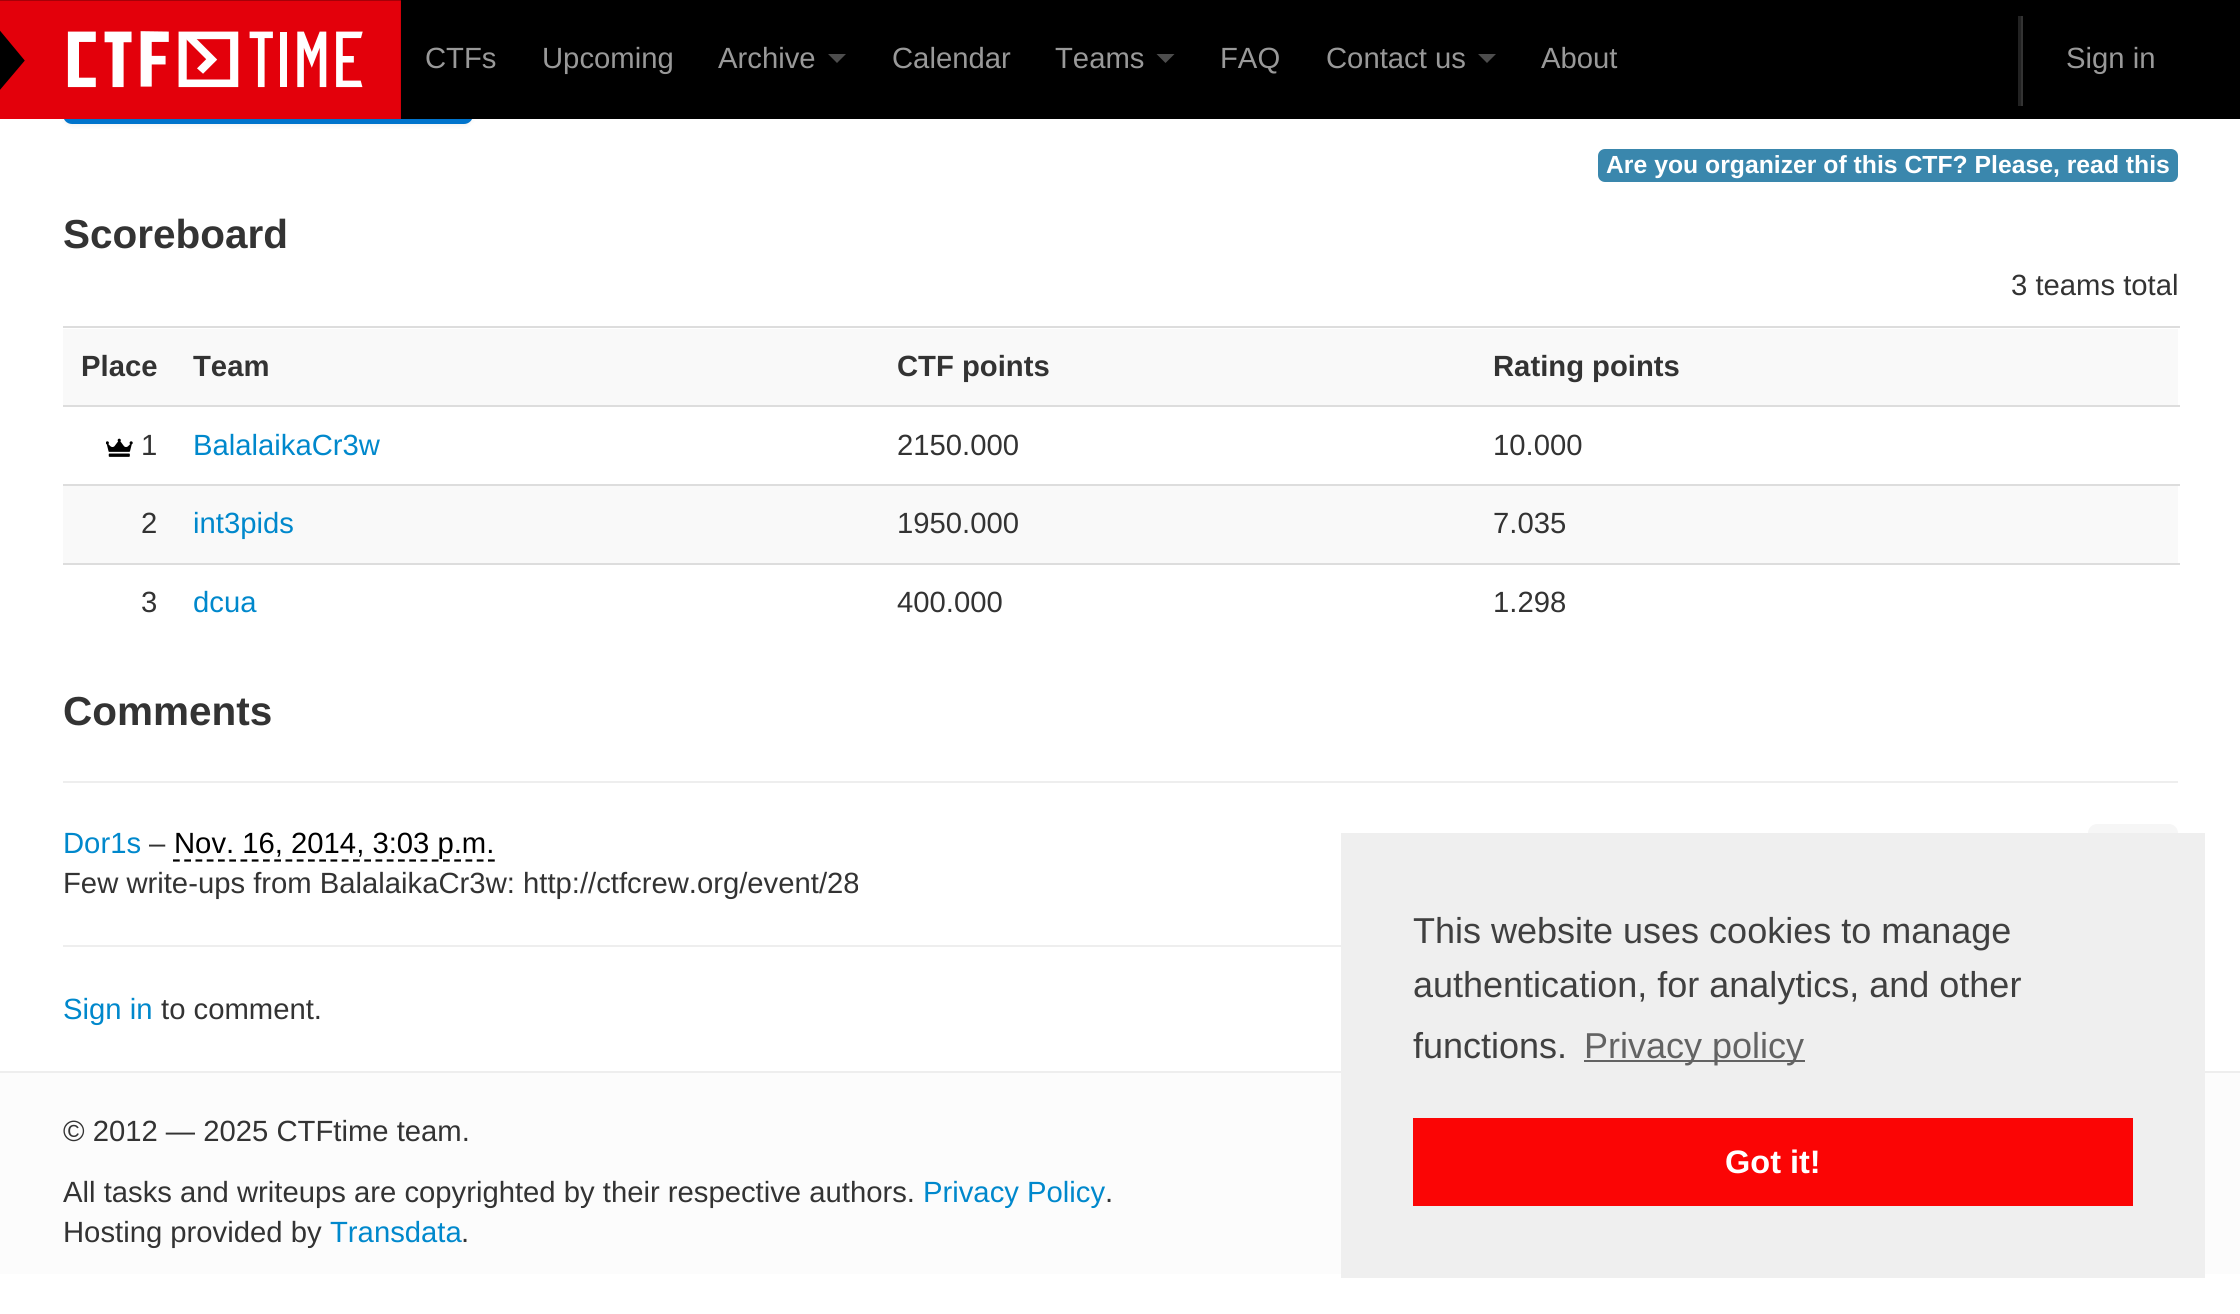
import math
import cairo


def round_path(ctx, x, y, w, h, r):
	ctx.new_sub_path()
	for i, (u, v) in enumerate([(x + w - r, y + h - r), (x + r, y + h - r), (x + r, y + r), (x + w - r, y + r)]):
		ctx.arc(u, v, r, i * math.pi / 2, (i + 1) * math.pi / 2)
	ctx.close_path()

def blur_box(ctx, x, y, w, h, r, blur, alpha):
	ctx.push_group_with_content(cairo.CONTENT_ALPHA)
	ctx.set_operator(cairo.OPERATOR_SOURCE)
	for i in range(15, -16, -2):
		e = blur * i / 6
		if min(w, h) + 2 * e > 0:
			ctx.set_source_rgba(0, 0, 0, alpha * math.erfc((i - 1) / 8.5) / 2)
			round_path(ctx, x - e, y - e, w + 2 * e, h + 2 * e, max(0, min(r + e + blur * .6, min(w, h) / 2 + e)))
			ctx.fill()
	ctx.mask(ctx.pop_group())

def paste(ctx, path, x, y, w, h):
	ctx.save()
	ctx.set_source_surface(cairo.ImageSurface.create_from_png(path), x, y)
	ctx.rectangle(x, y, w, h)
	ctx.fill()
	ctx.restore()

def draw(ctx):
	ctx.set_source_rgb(1, 1, 1)
	ctx.paint()
	ctx.set_source_rgb(0, 0, 0)
	blur_box(ctx, 63, 59, 410, 67, 9, 2, 0.05)
	ctx.set_source_rgb(0, 0.455, 0.8)
	round_path(ctx, 63, 56, 410, 68, 9)
	ctx.fill()
	ctx.set_source_rgb(0, 0, 0)
	ctx.rectangle(0, 0, 2240, 119)
	ctx.fill()
	paste(ctx, 'media/1.png', 0, 0, 401, 119)
	ctx.select_font_face('Liberation Sans')
	ctx.set_font_size(29.25)
	ctx.set_source_rgb(0.6, 0.6, 0.6)
	for x, y, s in [
		(425, 68, 'CTFs'),
		(542, 68, 'Upcoming'),
		(718, 68, 'Archive'),
	]:
		ctx.move_to(x, y)
		ctx.show_text(s)
	ctx.set_source_rgb(0.302, 0.302, 0.302)
	ctx.new_path()
	ctx.move_to(828, 54)
	ctx.line_to(846, 54)
	ctx.line_to(837, 63)
	ctx.close_path()
	ctx.fill()
	ctx.set_source_rgb(0.6, 0.6, 0.6)
	ctx.move_to(892, 68)
	ctx.show_text('Calendar')
	ctx.move_to(1055, 68)
	ctx.show_text('Teams')
	ctx.set_source_rgb(0.302, 0.302, 0.302)
	ctx.new_path()
	ctx.move_to(1156.5, 54)
	ctx.line_to(1174.5, 54)
	ctx.line_to(1165.5, 63)
	ctx.close_path()
	ctx.fill()
	ctx.set_source_rgb(0.6, 0.6, 0.6)
	ctx.move_to(1220, 68)
	ctx.show_text('FAQ')
	ctx.move_to(1326, 68)
	ctx.show_text('Contact us')
	ctx.set_source_rgb(0.302, 0.302, 0.302)
	ctx.new_path()
	ctx.move_to(1478, 54)
	ctx.line_to(1496, 54)
	ctx.line_to(1487, 63)
	ctx.close_path()
	ctx.fill()
	ctx.set_source_rgb(0.6, 0.6, 0.6)
	ctx.move_to(1541, 68)
	ctx.show_text('About')
	ctx.set_source_rgb(0.133, 0.133, 0.133)
	ctx.rectangle(2018, 16, 3, 90)
	ctx.fill()
	ctx.set_source_rgb(0.2, 0.2, 0.2)
	ctx.rectangle(2021, 16, 2, 90)
	ctx.fill()
	ctx.set_source_rgb(0.6, 0.6, 0.6)
	ctx.move_to(2066, 68)
	ctx.show_text('Sign in')
	ctx.set_source_rgb(0.227, 0.529, 0.678)
	round_path(ctx, 1598, 149, 580, 33, 7)
	ctx.fill()
	ctx.select_font_face('Liberation Sans', cairo.FONT_SLANT_NORMAL, cairo.FONT_WEIGHT_BOLD)
	ctx.set_font_size(24.75)
	ctx.set_source_rgb(1, 1, 1)
	ctx.move_to(1606, 173)
	ctx.show_text('Are you organizer of this CTF? Please, read this')
	ctx.set_font_size(40.5)
	ctx.set_source_rgb(0.2, 0.2, 0.2)
	ctx.move_to(63, 248)
	ctx.show_text('Scoreboard')
	ctx.select_font_face('Liberation Sans')
	ctx.set_font_size(29.25)
	ctx.move_to(2011, 295)
	ctx.show_text('3 teams total')
	ctx.set_source_rgb(0.976, 0.976, 0.976)
	ctx.rectangle(63, 329, 2115, 76)
	ctx.fill()
	ctx.select_font_face('Liberation Sans', cairo.FONT_SLANT_NORMAL, cairo.FONT_WEIGHT_BOLD)
	ctx.set_source_rgb(0.2, 0.2, 0.2)
	for x, y, s in [
		(81, 376, 'Place'),
		(193, 376, 'Team'),
		(897, 376, 'CTF points'),
	]:
		ctx.move_to(x, y)
		ctx.show_text(s)
	ctx.set_source_rgb(0.867, 0.867, 0.867)
	ctx.rectangle(63, 326, 2117, 2)
	ctx.fill()
	ctx.set_source_rgb(0.2, 0.2, 0.2)
	ctx.move_to(1493, 376)
	ctx.show_text('Rating points')
	paste(ctx, 'media/2.png', 106, 438, 27, 19)
	ctx.select_font_face('Liberation Sans')
	ctx.move_to(141, 455)
	ctx.show_text('1')
	ctx.set_source_rgb(0, 0.533, 0.8)
	ctx.move_to(193, 455)
	ctx.show_text('BalalaikaCr3w')
	ctx.set_source_rgb(0.2, 0.2, 0.2)
	ctx.move_to(897, 455)
	ctx.show_text('2150.000')
	ctx.set_source_rgb(0.867, 0.867, 0.867)
	ctx.rectangle(63, 405, 2117, 2)
	ctx.fill()
	ctx.set_source_rgb(0.2, 0.2, 0.2)
	ctx.move_to(1493, 455)
	ctx.show_text('10.000')
	ctx.set_source_rgb(0.976, 0.976, 0.976)
	ctx.rectangle(63, 486, 2115, 77)
	ctx.fill()
	ctx.set_source_rgb(0.2, 0.2, 0.2)
	ctx.move_to(141, 533)
	ctx.show_text('2')
	ctx.set_source_rgb(0, 0.533, 0.8)
	ctx.move_to(193, 533)
	ctx.show_text('int3pids')
	ctx.set_source_rgb(0.2, 0.2, 0.2)
	ctx.move_to(897, 533)
	ctx.show_text('1950.000')
	ctx.set_source_rgb(0.867, 0.867, 0.867)
	ctx.rectangle(63, 484, 2117, 2)
	ctx.fill()
	ctx.set_source_rgb(0.2, 0.2, 0.2)
	ctx.move_to(1493, 533)
	ctx.show_text('7.035')
	ctx.move_to(141, 612)
	ctx.show_text('3')
	ctx.set_source_rgb(0, 0.533, 0.8)
	ctx.move_to(193, 612)
	ctx.show_text('dcua')
	ctx.set_source_rgb(0.2, 0.2, 0.2)
	ctx.move_to(897, 612)
	ctx.show_text('400.000')
	ctx.set_source_rgb(0.867, 0.867, 0.867)
	ctx.rectangle(63, 563, 2117, 2)
	ctx.fill()
	ctx.set_source_rgb(0.2, 0.2, 0.2)
	ctx.move_to(1493, 612)
	ctx.show_text('1.298')
	ctx.set_source_rgb(0.933, 0.933, 0.933)
	ctx.rectangle(63, 781, 2115, 2)
	ctx.fill()
	ctx.select_font_face('Liberation Sans', cairo.FONT_SLANT_NORMAL, cairo.FONT_WEIGHT_BOLD)
	ctx.set_font_size(40.5)
	ctx.set_source_rgb(0.2, 0.2, 0.2)
	ctx.move_to(63, 725)
	ctx.show_text('Comments')
	ctx.select_font_face('Liberation Sans')
	ctx.set_font_size(29.25)
	ctx.set_source_rgb(0, 0.533, 0.8)
	ctx.move_to(63, 853)
	ctx.show_text('Dor1s')
	ctx.set_source_rgb(0.2, 0.2, 0.2)
	ctx.move_to(149, 853)
	ctx.show_text('–')
	ctx.new_path()
	ctx.move_to(173, 860.5)
	ctx.line_to(495, 860.5)
	ctx.set_source_rgb(0, 0, 0)
	ctx.set_line_width(2.2)
	ctx.set_dash([6.75, 4.5])
	ctx.stroke()
	ctx.move_to(174, 853)
	ctx.show_text('Nov. 16, 2014, 3:03 p.m.')
	ctx.set_source_rgb(0.961, 0.961, 0.961)
	round_path(ctx, 2088, 824, 90, 67, 9)
	ctx.fill()
	ctx.set_source_rgb(0.2, 0.2, 0.2)
	ctx.move_to(63, 893)
	ctx.show_text('Few write-ups from BalalaikaCr3w: http://ctfcrew.org/event/28')
	ctx.set_source_rgb(0.933, 0.933, 0.933)
	ctx.rectangle(63, 945, 1278, 2)
	ctx.fill()
	ctx.set_source_rgb(0, 0.533, 0.8)
	ctx.move_to(63, 1019)
	ctx.show_text('Sign in')
	ctx.set_source_rgb(0.2, 0.2, 0.2)
	ctx.move_to(161, 1019)
	ctx.show_text('to comment.')
	ctx.set_source_rgb(0.988, 0.988, 0.988)
	ctx.rectangle(0, 1073, 2240, 201)
	ctx.fill()
	ctx.set_source_rgb(0.933, 0.933, 0.933)
	ctx.rectangle(0, 1071, 2240, 2)
	ctx.fill()
	ctx.set_source_rgb(0.2, 0.2, 0.2)
	ctx.move_to(63, 1141)
	ctx.show_text('© 2012 — 2025 CTFtime team.')
	ctx.move_to(63, 1202)
	ctx.show_text('All tasks and writeups are copyrighted by their respective authors.')
	ctx.set_source_rgb(0, 0.533, 0.8)
	ctx.move_to(923, 1202)
	ctx.show_text('Privacy Policy')
	ctx.set_source_rgb(0.2, 0.2, 0.2)
	ctx.move_to(1105, 1202)
	ctx.show_text('.')
	ctx.move_to(63, 1242)
	ctx.show_text('Hosting provided by')
	ctx.set_source_rgb(0, 0.533, 0.8)
	ctx.move_to(330, 1242)
	ctx.show_text('Transdata')
	ctx.set_source_rgb(0.2, 0.2, 0.2)
	ctx.move_to(461, 1242)
	ctx.show_text('.')
	ctx.set_source_rgb(0.937, 0.937, 0.937)
	ctx.rectangle(1341, 833, 864, 445)
	ctx.fill()
	ctx.set_font_size(36)
	ctx.set_source_rgb(0.251, 0.251, 0.251)
	for x, y, s in [
		(1413, 943, 'This website uses cookies to manage'),
		(1413, 997, 'authentication, for analytics, and other'),
		(1413, 1058, 'functions.'),
	]:
		ctx.move_to(x, y)
		ctx.show_text(s)
	ctx.set_source_rgb(0.388, 0.388, 0.388)
	ctx.rectangle(1584, 1060, 221, 2)
	ctx.fill()
	ctx.move_to(1584, 1058)
	ctx.show_text('Privacy policy')
	ctx.set_source_rgb(0.984, 0.02, 0.02)
	ctx.rectangle(1413, 1118, 720, 88)
	ctx.fill()
	ctx.select_font_face('Liberation Sans', cairo.FONT_SLANT_NORMAL, cairo.FONT_WEIGHT_BOLD)
	ctx.set_font_size(32.5)
	ctx.set_source_rgb(1, 1, 1)
	ctx.move_to(1725, 1173)
	ctx.show_text('Got it!')


surface = cairo.ImageSurface(cairo.FORMAT_RGB24, 2240, 1314)
ctx = cairo.Context(surface)
options = cairo.FontOptions()
options.set_hint_metrics(cairo.HINT_METRICS_OFF)
options.set_hint_style(cairo.HINT_STYLE_NONE)
ctx.set_font_options(options)
ctx.set_miter_limit(4)
draw(ctx)
surface.write_to_png('image.png')
